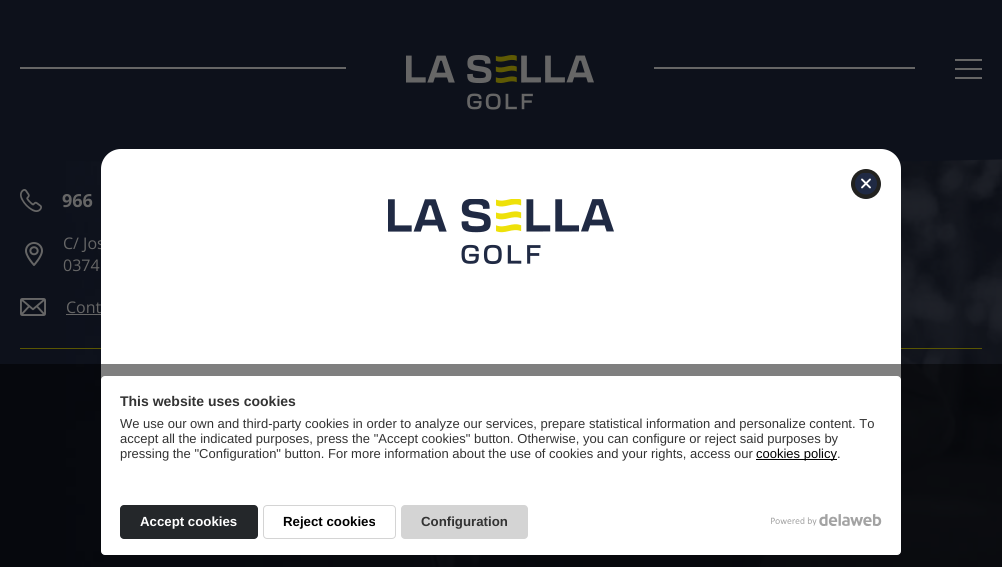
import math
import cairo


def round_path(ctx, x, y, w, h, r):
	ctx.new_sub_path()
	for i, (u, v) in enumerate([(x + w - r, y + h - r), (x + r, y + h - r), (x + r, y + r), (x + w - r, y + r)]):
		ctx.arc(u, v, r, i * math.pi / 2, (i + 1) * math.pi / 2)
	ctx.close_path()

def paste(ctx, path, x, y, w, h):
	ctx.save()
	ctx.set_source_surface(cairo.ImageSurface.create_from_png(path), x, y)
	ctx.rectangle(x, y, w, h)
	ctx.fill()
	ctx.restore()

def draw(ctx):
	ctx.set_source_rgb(0.051, 0.067, 0.106)
	ctx.paint()
	paste(ctx, 'media/2.png', 66, 159, 936, 408)
	ctx.set_source_rgb(0.051, 0.067, 0.106)
	ctx.new_path()
	ctx.move_to(-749, 0)
	ctx.line_to(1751, 0)
	ctx.line_to(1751, 99)
	ctx.curve_to(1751, 135, 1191, 165, 501, 165)
	ctx.curve_to(-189, 165, -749, 135, -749, 99)
	ctx.close_path()
	ctx.fill()
	ctx.set_source_rgb(0.4, 0.4, 0.4)
	ctx.rectangle(20, 67, 326, 2)
	ctx.fill()
	paste(ctx, 'media/1.png', 406, 55, 188, 55)
	ctx.rectangle(654, 67, 261, 2)
	ctx.rectangle(955, 59, 27, 2)
	ctx.rectangle(955, 68, 27, 2)
	ctx.rectangle(955, 77, 27, 2)
	ctx.fill()
	paste(ctx, 'media/3.png', 20, 189, 22, 23)
	ctx.select_font_face('Open Sans', cairo.FONT_SLANT_NORMAL, cairo.FONT_WEIGHT_BOLD)
	ctx.set_font_size(18)
	ctx.move_to(62, 207)
	ctx.show_text('966')
	paste(ctx, 'media/4.png', 25, 242, 18, 24)
	ctx.select_font_face('Open Sans')
	ctx.set_font_size(16)
	ctx.move_to(63, 249)
	ctx.show_text('C/ Jos')
	ctx.move_to(63, 271)
	ctx.show_text('0374')
	paste(ctx, 'media/5.png', 20, 298, 26, 18)
	ctx.move_to(66, 313)
	ctx.show_text('Cont')
	ctx.rectangle(66, 314, 35, 1)
	ctx.fill()
	ctx.set_source_rgb(0.353, 0.337, 0.008)
	ctx.rectangle(20, 348, 962, 1)
	ctx.fill()
	ctx.set_source_rgb(1, 1, 1)
	round_path(ctx, 101, 149, 800, 271, 20)
	ctx.fill()
	ctx.set_source_rgb(0.133, 0.133, 0.125)
	ctx.arc(866, 184, 15, 0, 2 * math.pi)
	ctx.fill()
	paste(ctx, 'media/6.png', 855, 173, 22, 22)
	paste(ctx, 'media/7.png', 388, 199, 226, 66)
	ctx.set_source_rgba(0, 0, 0, 0.5)
	ctx.rectangle(0, 364, 1002, 203)
	ctx.fill()
	ctx.set_source_rgb(1, 1, 1)
	round_path(ctx, 101.5, 376.5, 799, 178, 3.5)
	ctx.fill_preserve()
	ctx.set_line_width(1)
	ctx.stroke()
	ctx.select_font_face('Liberation Sans', cairo.FONT_SLANT_NORMAL, cairo.FONT_WEIGHT_BOLD)
	ctx.set_font_size(14)
	ctx.set_source_rgb(0.2, 0.2, 0.2)
	ctx.move_to(120, 406)
	ctx.show_text('This website uses cookies')
	ctx.select_font_face('Liberation Sans')
	ctx.set_font_size(13)
	for x, y, s in [
		(120, 428, 'We use our own and third-party cookies in order to analyze our services, prepare statistical information and personalize content. To'),
		(120, 443, 'accept all the indicated purposes, press the "Accept cookies" button. Otherwise, you can configure or reject said purposes by'),
		(120, 458, 'pressing the "Configuration" button. For more information about the use of cookies and your rights, access our'),
	]:
		ctx.move_to(x, y)
		ctx.show_text(s)
	ctx.set_source_rgb(0, 0, 0)
	ctx.rectangle(756, 459, 81, 1)
	ctx.fill()
	ctx.move_to(756, 458)
	ctx.show_text('cookies policy')
	ctx.set_source_rgb(0.2, 0.2, 0.2)
	ctx.move_to(837, 458)
	ctx.show_text('.')
	ctx.set_source_rgb(0.141, 0.153, 0.165)
	round_path(ctx, 120, 505, 138, 34, 4)
	ctx.fill()
	ctx.select_font_face('Liberation Sans', cairo.FONT_SLANT_NORMAL, cairo.FONT_WEIGHT_BOLD)
	ctx.set_font_size(13.25)
	ctx.set_source_rgb(1, 1, 1)
	ctx.move_to(140, 526)
	ctx.show_text('Accept cookies')
	round_path(ctx, 263.5, 505.5, 132, 33, 3.5)
	ctx.set_source_rgb(0.831, 0.831, 0.831)
	ctx.stroke()
	ctx.set_source_rgb(0, 0, 0)
	ctx.move_to(283, 526)
	ctx.show_text('Reject cookies')
	ctx.set_source_rgb(0.831, 0.831, 0.831)
	round_path(ctx, 401, 505, 127, 34, 4)
	ctx.fill()
	ctx.set_source_rgb(0.2, 0.2, 0.2)
	ctx.move_to(421, 526)
	ctx.show_text('Configuration')
	paste(ctx, 'media/8.png', 771, 514, 111, 12)


surface = cairo.ImageSurface(cairo.FORMAT_RGB24, 1002, 567)
ctx = cairo.Context(surface)
options = cairo.FontOptions()
options.set_hint_metrics(cairo.HINT_METRICS_OFF)
options.set_hint_style(cairo.HINT_STYLE_NONE)
ctx.set_font_options(options)
ctx.set_miter_limit(4)
draw(ctx)
surface.write_to_png('image.png')
